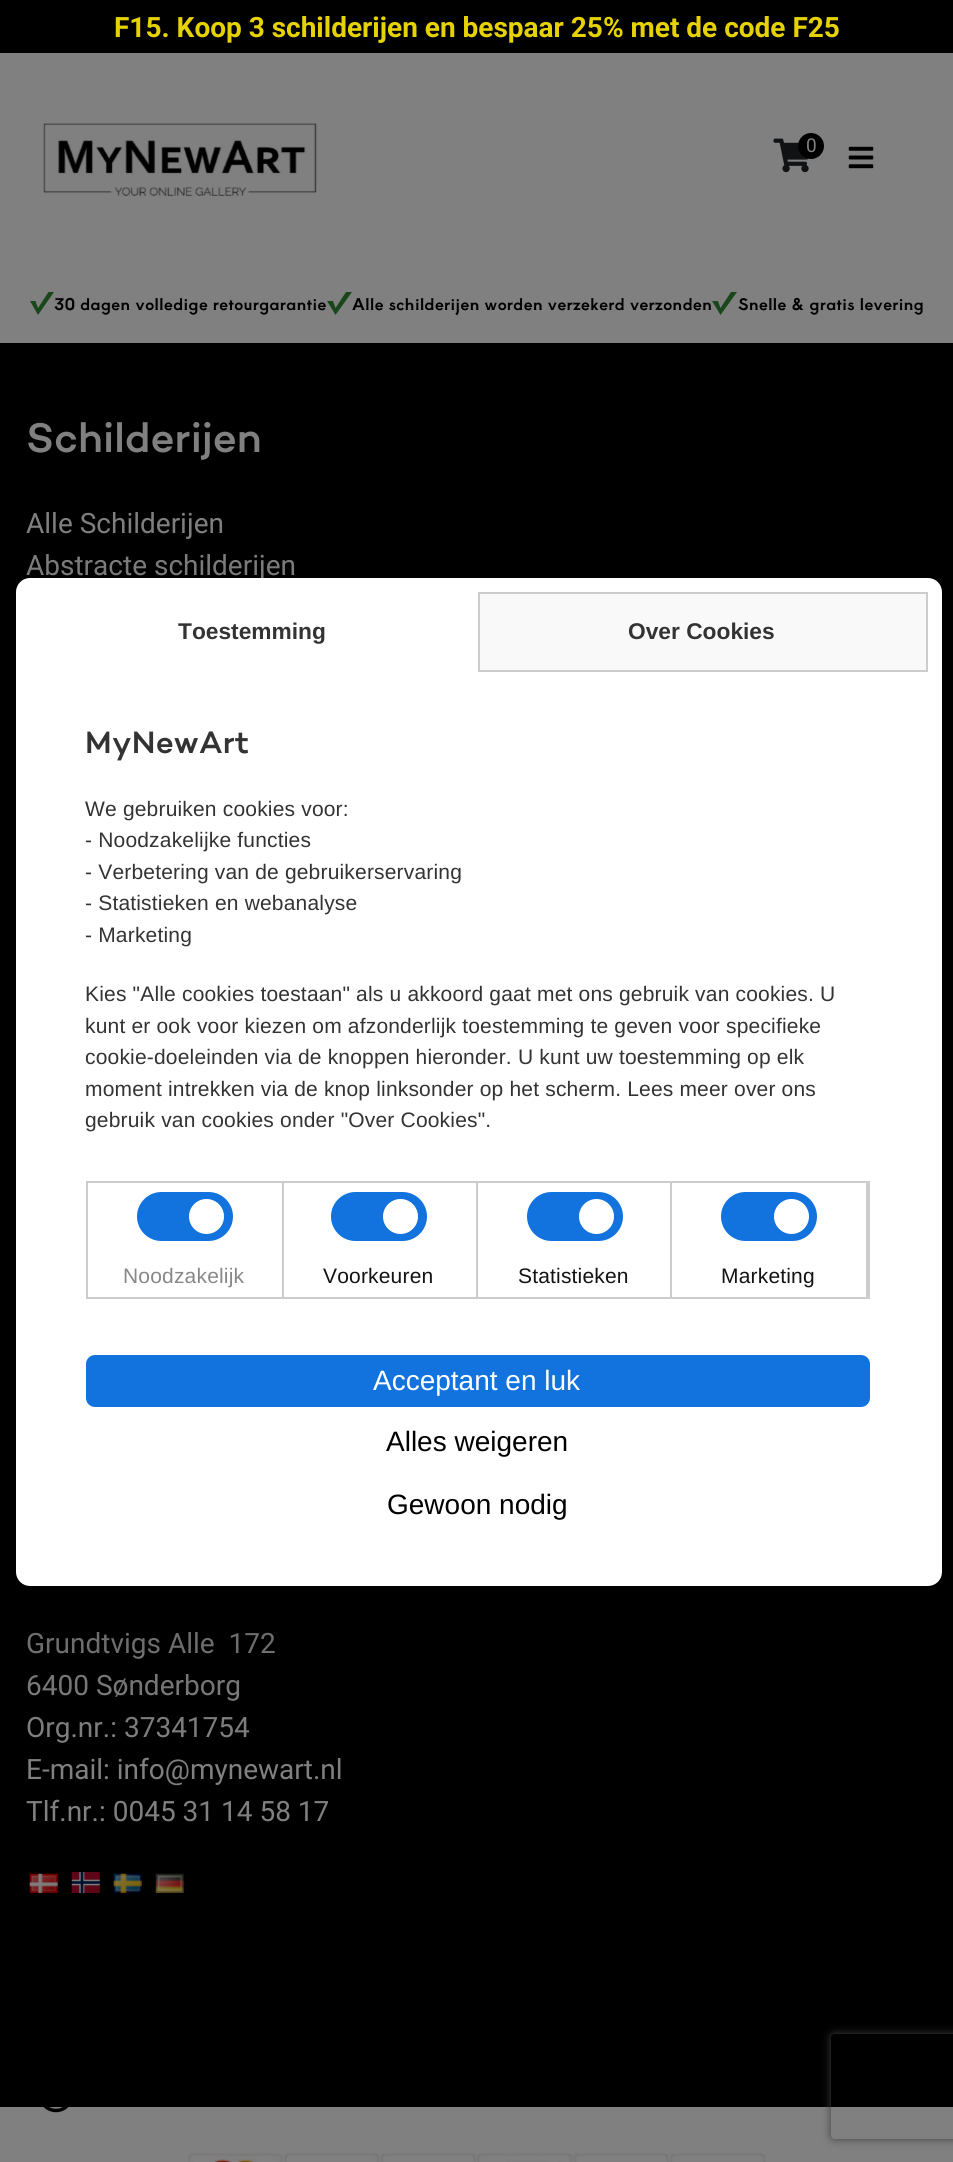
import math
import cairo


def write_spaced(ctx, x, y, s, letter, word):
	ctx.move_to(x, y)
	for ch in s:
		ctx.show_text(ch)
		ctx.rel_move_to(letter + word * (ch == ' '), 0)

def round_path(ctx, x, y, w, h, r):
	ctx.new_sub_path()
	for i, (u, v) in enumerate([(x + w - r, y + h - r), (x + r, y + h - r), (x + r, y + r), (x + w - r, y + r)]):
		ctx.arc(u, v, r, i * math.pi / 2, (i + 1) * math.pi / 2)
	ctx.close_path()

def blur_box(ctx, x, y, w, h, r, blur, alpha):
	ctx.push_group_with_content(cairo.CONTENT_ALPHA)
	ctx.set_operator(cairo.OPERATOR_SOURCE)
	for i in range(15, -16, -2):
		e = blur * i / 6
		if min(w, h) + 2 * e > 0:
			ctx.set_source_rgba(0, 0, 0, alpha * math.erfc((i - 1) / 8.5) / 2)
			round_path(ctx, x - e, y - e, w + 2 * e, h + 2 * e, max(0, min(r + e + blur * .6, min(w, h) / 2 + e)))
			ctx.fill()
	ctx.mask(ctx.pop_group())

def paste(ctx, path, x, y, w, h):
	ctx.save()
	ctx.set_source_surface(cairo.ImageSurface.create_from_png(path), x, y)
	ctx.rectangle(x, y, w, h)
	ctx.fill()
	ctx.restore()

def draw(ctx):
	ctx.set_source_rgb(0.502, 0.502, 0.502)
	ctx.paint()
	ctx.set_source_rgb(0, 0, 0)
	ctx.rectangle(0, 0, 953, 53)
	ctx.fill()
	ctx.select_font_face('Roboto', cairo.FONT_SLANT_NORMAL, cairo.FONT_WEIGHT_BOLD)
	ctx.set_font_size(28)
	ctx.set_source_rgb(0.902, 0.824, 0)
	ctx.move_to(114, 37)
	ctx.show_text('F15. Koop 3 schilderijen en bespaar 25% met de code F25')
	paste(ctx, 'media/1.png', 43, 123, 274, 73)
	paste(ctx, 'media/2.png', 773, 138, 36, 35)
	ctx.set_source_rgb(0, 0, 0)
	ctx.arc(811, 146, 13, 0, 2 * math.pi)
	ctx.fill()
	ctx.select_font_face('Roboto')
	ctx.set_font_size(19)
	ctx.set_source_rgb(0.502, 0.502, 0.502)
	ctx.move_to(806, 152)
	ctx.show_text('0')
	paste(ctx, 'media/3.png', 848, 146, 26, 23)
	ctx.set_source_rgb(0.098, 0.278, 0.106)
	ctx.new_path()
	ctx.move_to(38, 315)
	ctx.line_to(30, 301)
	ctx.line_to(35.5, 301)
	ctx.line_to(38, 308)
	ctx.line_to(48.5, 292)
	ctx.line_to(54, 292)
	ctx.close_path()
	ctx.fill()
	ctx.select_font_face('Aoboshi One')
	ctx.set_font_size(15.75)
	ctx.set_source_rgb(0, 0, 0)
	write_spaced(ctx, 54, 310, '30 dagen volledige retourgarantie', 0.45, 0)
	ctx.set_source_rgb(0.098, 0.278, 0.106)
	ctx.new_path()
	ctx.move_to(335.5, 315)
	ctx.line_to(327, 301)
	ctx.line_to(333, 301)
	ctx.line_to(335.5, 308)
	ctx.line_to(346, 292)
	ctx.line_to(352, 292)
	ctx.close_path()
	ctx.fill()
	ctx.set_source_rgb(0, 0, 0)
	write_spaced(ctx, 352, 310, 'Alle schilderijen worden verzekerd verzonden', 0.45, 0)
	ctx.set_source_rgb(0.098, 0.278, 0.106)
	ctx.new_path()
	ctx.move_to(720.5, 315)
	ctx.line_to(712, 301)
	ctx.line_to(718, 301)
	ctx.line_to(720.5, 308)
	ctx.line_to(731, 292)
	ctx.line_to(737, 292)
	ctx.close_path()
	ctx.fill()
	ctx.set_source_rgb(0, 0, 0)
	write_spaced(ctx, 738, 310, 'Snelle & gratis levering', 0.45, 0)
	ctx.rectangle(0, 343, 953, 1764)
	ctx.fill()
	ctx.select_font_face('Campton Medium')
	ctx.set_font_size(42)
	ctx.set_source_rgb(0.502, 0.502, 0.502)
	ctx.move_to(26, 452)
	ctx.show_text('Schilderijen')
	ctx.select_font_face('Roboto')
	ctx.set_font_size(28)
	for x, y, s in [
		(26, 533, 'Alle Schilderijen'),
		(26, 575, 'Abstracte schilderijen'),
		(26, 1653, 'Grundtvigs Alle  172'),
		(26, 1695, '6400 Sønderborg'),
		(26, 1737, 'Org.nr.: 37341754'),
		(26, 1779, 'E-mail: info@mynewart.nl'),
		(26, 1821, 'Tlf.nr.: 0045 31 14 58 17'),
	]:
		ctx.move_to(x, y)
		ctx.show_text(s)
	paste(ctx, 'media/4.png', 29, 1873, 29, 20)
	paste(ctx, 'media/5.png', 71, 1872, 29, 21)
	paste(ctx, 'media/6.png', 113, 1873, 29, 20)
	paste(ctx, 'media/7.png', 155, 1873, 29, 20)
	paste(ctx, 'media/8.png', 188, 2153, 578, 9)
	ctx.set_source_rgb(0, 0, 0)
	blur_box(ctx, 16, 634, 926, 1008, 14, 59.5, 0.3)
	ctx.set_source_rgb(1, 1, 1)
	round_path(ctx, 16, 578, 926, 1008, 14)
	ctx.fill()
	ctx.select_font_face('Liberation Sans', cairo.FONT_SLANT_NORMAL, cairo.FONT_WEIGHT_BOLD)
	ctx.set_font_size(22.75)
	ctx.set_source_rgb(0.2, 0.2, 0.2)
	ctx.move_to(178, 639)
	ctx.show_text('Toestemming')
	ctx.set_source_rgb(0.976, 0.976, 0.976)
	ctx.rectangle(479, 593, 448, 78)
	ctx.fill_preserve()
	ctx.set_source_rgb(0.8, 0.8, 0.8)
	ctx.stroke()
	ctx.set_source_rgb(0.2, 0.2, 0.2)
	ctx.move_to(628, 639)
	ctx.show_text('Over Cookies')
	ctx.select_font_face('Campton Medium')
	ctx.set_font_size(31.5)
	write_spaced(ctx, 85, 753, 'MyNewArt', 0.18, 0)
	ctx.select_font_face('Liberation Sans')
	ctx.set_font_size(21)
	for x, y, s in [
		(85, 816, 'We gebruiken cookies voor:'),
		(85, 847, '- Noodzakelijke functies'),
		(85, 879, '- Verbetering van de gebruikerservaring'),
		(85, 910, '- Statistieken en webanalyse'),
		(85, 942, '- Marketing'),
		(85, 1001, 'Kies "Alle cookies toestaan" als u akkoord gaat met ons gebruik van cookies. U'),
		(85, 1033, 'kunt er ook voor kiezen om afzonderlijk toestemming te geven voor specifieke'),
		(85, 1064, 'cookie-doeleinden via de knoppen hieronder. U kunt uw toestemming op elk'),
		(85, 1096, 'moment intrekken via de knop linksonder op het scherm. Lees meer over ons'),
		(85, 1127, 'gebruik van cookies onder "Over Cookies".'),
	]:
		write_spaced(ctx, x, y, s, 0.18, 0)
	ctx.rectangle(87, 1182, 782, 116)
	ctx.set_source_rgb(0.8, 0.8, 0.8)
	ctx.stroke()
	ctx.rectangle(282, 1183, 2, 114)
	ctx.fill()
	ctx.set_source_rgb(0.071, 0.451, 0.871)
	round_path(ctx, 137, 1192, 96, 49, 24.5)
	ctx.fill()
	ctx.set_source_rgb(1, 1, 1)
	ctx.arc(206.5, 1216.5, 17.5, 0, 2 * math.pi)
	ctx.fill()
	ctx.set_source_rgb(0.533, 0.533, 0.533)
	write_spaced(ctx, 123, 1283, 'Noodzakelijk', 0.18, 0)
	ctx.set_source_rgb(0.8, 0.8, 0.8)
	ctx.rectangle(476, 1183, 2, 114)
	ctx.fill()
	ctx.set_source_rgb(0.071, 0.451, 0.871)
	round_path(ctx, 331, 1192, 96, 49, 24.5)
	ctx.fill()
	ctx.set_source_rgb(1, 1, 1)
	ctx.arc(400.5, 1216.5, 17.5, 0, 2 * math.pi)
	ctx.fill()
	ctx.set_source_rgb(0.078, 0.078, 0.078)
	write_spaced(ctx, 323, 1283, 'Voorkeuren', 0.18, 0)
	ctx.set_source_rgb(0.8, 0.8, 0.8)
	ctx.rectangle(670, 1183, 2, 114)
	ctx.fill()
	ctx.set_source_rgb(0.071, 0.451, 0.871)
	round_path(ctx, 527, 1192, 96, 49, 24.5)
	ctx.fill()
	ctx.set_source_rgb(1, 1, 1)
	ctx.arc(596.5, 1216.5, 17.5, 0, 2 * math.pi)
	ctx.fill()
	ctx.set_source_rgb(0.078, 0.078, 0.078)
	write_spaced(ctx, 518, 1283, 'Statistieken', 0.18, 0)
	ctx.set_source_rgb(0.8, 0.8, 0.8)
	ctx.rectangle(866, 1183, 2, 114)
	ctx.fill()
	ctx.set_source_rgb(0.071, 0.451, 0.871)
	round_path(ctx, 721, 1192, 96, 49, 24.5)
	ctx.fill()
	ctx.set_source_rgb(1, 1, 1)
	ctx.arc(791.5, 1216.5, 17.5, 0, 2 * math.pi)
	ctx.fill()
	ctx.set_source_rgb(0.078, 0.078, 0.078)
	write_spaced(ctx, 721, 1283, 'Marketing', 0.18, 0)
	ctx.set_source_rgb(0.071, 0.451, 0.871)
	round_path(ctx, 86, 1355, 784, 52, 9)
	ctx.fill()
	ctx.set_font_size(28)
	ctx.set_source_rgb(1, 1, 1)
	ctx.move_to(373, 1390)
	ctx.show_text('Acceptant en luk')
	ctx.set_source_rgb(0, 0, 0)
	ctx.move_to(386, 1451)
	ctx.show_text('Alles weigeren')
	ctx.move_to(387, 1514)
	ctx.show_text('Gewoon nodig')
	paste(ctx, 'media/9.png', 43, 2107, 26, 6)
	ctx.save()
	ctx.set_fill_rule(cairo.FILL_RULE_EVEN_ODD)
	ctx.new_path()
	ctx.move_to(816, 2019)
	ctx.line_to(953, 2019)
	ctx.line_to(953, 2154)
	ctx.line_to(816, 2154)
	ctx.close_path()
	ctx.move_to(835, 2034)
	ctx.line_to(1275, 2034)
	ctx.curve_to(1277, 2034, 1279, 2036, 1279, 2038)
	ctx.line_to(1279, 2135)
	ctx.curve_to(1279, 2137, 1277, 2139, 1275, 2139)
	ctx.line_to(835, 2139)
	ctx.curve_to(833, 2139, 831, 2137, 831, 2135)
	ctx.line_to(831, 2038)
	ctx.curve_to(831, 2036, 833, 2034, 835, 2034)
	ctx.close_path()
	ctx.clip()
	ctx.set_source_rgb(0.251, 0.251, 0.251)
	blur_box(ctx, 831, 2034, 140, 105, 4, 4.5, 1)
	ctx.restore()


surface = cairo.ImageSurface(cairo.FORMAT_RGB24, 953, 2162)
ctx = cairo.Context(surface)
options = cairo.FontOptions()
options.set_hint_metrics(cairo.HINT_METRICS_OFF)
options.set_hint_style(cairo.HINT_STYLE_NONE)
ctx.set_font_options(options)
ctx.set_miter_limit(4)
draw(ctx)
surface.write_to_png('image.png')
